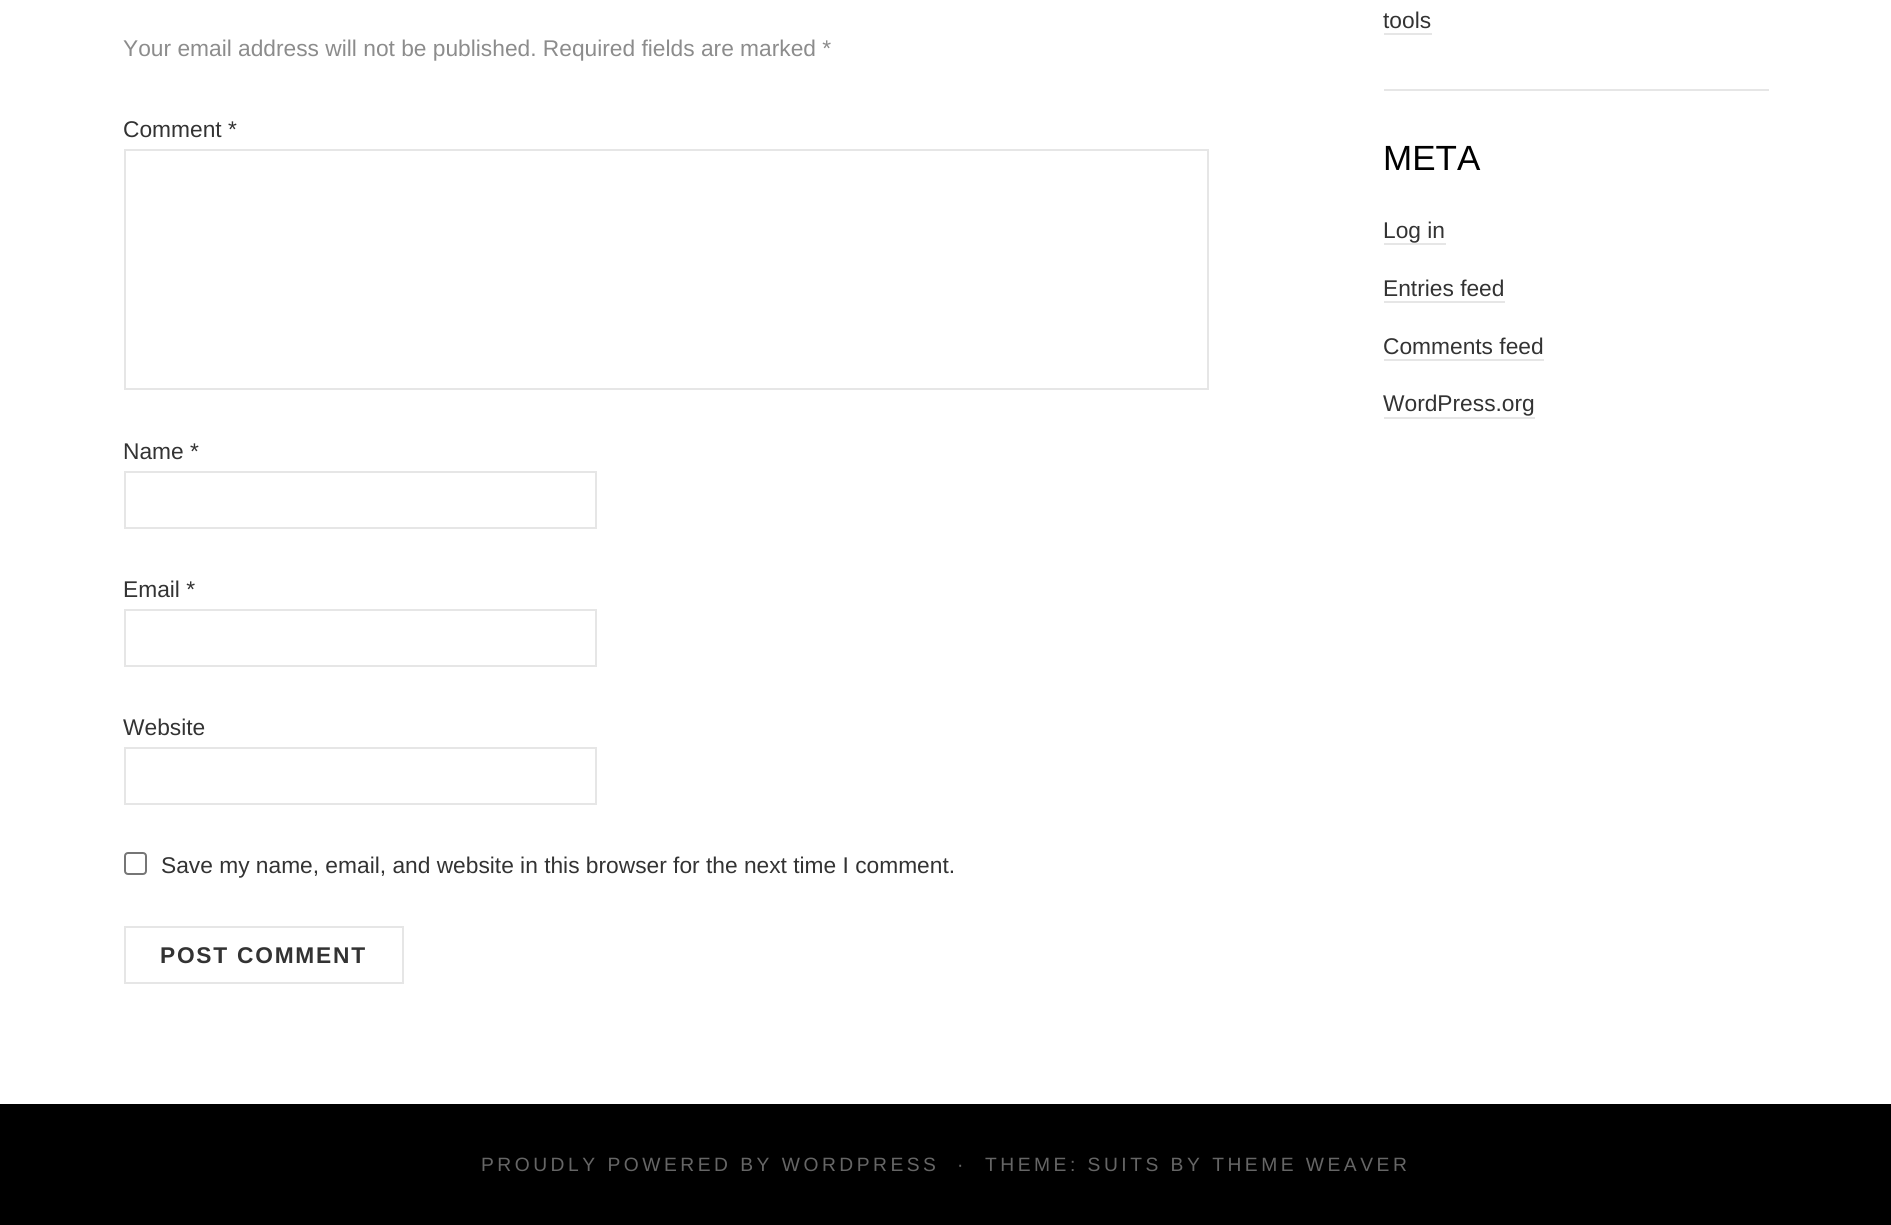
import math
import cairo


def write_spaced(ctx, x, y, s, letter, word):
	ctx.move_to(x, y)
	for ch in s:
		ctx.show_text(ch)
		ctx.rel_move_to(letter + word * (ch == ' '), 0)

def round_path(ctx, x, y, w, h, r):
	ctx.new_sub_path()
	for i, (u, v) in enumerate([(x + w - r, y + h - r), (x + r, y + h - r), (x + r, y + r), (x + w - r, y + r)]):
		ctx.arc(u, v, r, i * math.pi / 2, (i + 1) * math.pi / 2)
	ctx.close_path()

def draw(ctx):
	ctx.set_source_rgb(1, 1, 1)
	ctx.paint()
	ctx.select_font_face('Liberation Sans')
	ctx.set_font_size(22.75)
	ctx.set_source_rgb(0.549, 0.549, 0.549)
	ctx.move_to(123, 56)
	ctx.show_text('Your email address will not be published. Required fields are marked *')
	ctx.set_source_rgb(0.2, 0.2, 0.2)
	ctx.move_to(123, 137)
	ctx.show_text('Comment *')
	ctx.rectangle(125, 150, 1083, 239)
	ctx.set_source_rgb(0.902, 0.902, 0.902)
	ctx.stroke()
	ctx.set_source_rgb(0.2, 0.2, 0.2)
	ctx.move_to(123, 459)
	ctx.show_text('Name *')
	ctx.rectangle(125, 472, 471, 56)
	ctx.set_source_rgb(0.902, 0.902, 0.902)
	ctx.stroke()
	ctx.set_source_rgb(0.2, 0.2, 0.2)
	ctx.move_to(123, 597)
	ctx.show_text('Email *')
	ctx.rectangle(125, 610, 471, 56)
	ctx.set_source_rgb(0.902, 0.902, 0.902)
	ctx.stroke()
	ctx.set_source_rgb(0.2, 0.2, 0.2)
	ctx.move_to(123, 735)
	ctx.show_text('Website')
	ctx.rectangle(125, 748, 471, 56)
	ctx.set_source_rgb(0.902, 0.902, 0.902)
	ctx.stroke()
	round_path(ctx, 125, 853, 21, 21, 3)
	ctx.set_source_rgb(0.463, 0.463, 0.463)
	ctx.stroke()
	ctx.set_source_rgb(0.2, 0.2, 0.2)
	ctx.move_to(161, 873)
	ctx.show_text('Save my name, email, and website in this browser for the next time I comment.')
	ctx.rectangle(125, 927, 278, 56)
	ctx.set_source_rgb(0.902, 0.902, 0.902)
	ctx.stroke()
	ctx.select_font_face('Liberation Sans', cairo.FONT_SLANT_NORMAL, cairo.FONT_WEIGHT_BOLD)
	ctx.set_source_rgb(0.2, 0.2, 0.2)
	write_spaced(ctx, 160, 963, 'POST COMMENT', 1.75, 0)
	ctx.set_source_rgb(0.902, 0.902, 0.902)
	ctx.rectangle(1384, 89, 385, 2)
	ctx.fill()
	ctx.select_font_face('Liberation Sans')
	ctx.set_source_rgb(0.2, 0.2, 0.2)
	ctx.move_to(1383, 28)
	ctx.show_text('tools')
	ctx.set_source_rgb(0.902, 0.902, 0.902)
	ctx.rectangle(1384, 33, 48, 2)
	ctx.fill()
	ctx.set_font_size(35)
	ctx.set_source_rgb(0, 0, 0)
	ctx.move_to(1383, 170)
	ctx.show_text('META')
	ctx.set_font_size(22.75)
	ctx.set_source_rgb(0.2, 0.2, 0.2)
	ctx.move_to(1383, 238)
	ctx.show_text('Log in')
	ctx.set_source_rgb(0.902, 0.902, 0.902)
	ctx.rectangle(1384, 243, 62, 2)
	ctx.fill()
	ctx.set_source_rgb(0.2, 0.2, 0.2)
	ctx.move_to(1383, 296)
	ctx.show_text('Entries feed')
	ctx.set_source_rgb(0.902, 0.902, 0.902)
	ctx.rectangle(1384, 301, 121, 2)
	ctx.fill()
	ctx.set_source_rgb(0.2, 0.2, 0.2)
	ctx.move_to(1383, 354)
	ctx.show_text('Comments feed')
	ctx.set_source_rgb(0.902, 0.902, 0.902)
	ctx.rectangle(1384, 359, 160, 2)
	ctx.fill()
	ctx.set_source_rgb(0.2, 0.2, 0.2)
	ctx.move_to(1383, 411)
	ctx.show_text('WordPress.org')
	ctx.set_source_rgb(0.902, 0.902, 0.902)
	ctx.rectangle(1384, 417, 151, 2)
	ctx.fill()
	ctx.set_source_rgb(0, 0, 0)
	ctx.rectangle(0, 1104, 1891, 121)
	ctx.fill()
	ctx.set_font_size(19.25)
	ctx.set_source_rgb(0.4, 0.4, 0.4)
	for x, y, s in [
		(481, 1171, 'PROUDLY POWERED BY WORDPRESS'),
		(957, 1171, '·'),
		(985, 1171, 'THEME: SUITS BY THEME WEAVER'),
	]:
		write_spaced(ctx, x, y, s, 3.5, 0)


surface = cairo.ImageSurface(cairo.FORMAT_RGB24, 1891, 1225)
ctx = cairo.Context(surface)
options = cairo.FontOptions()
options.set_hint_metrics(cairo.HINT_METRICS_OFF)
options.set_hint_style(cairo.HINT_STYLE_NONE)
ctx.set_font_options(options)
ctx.set_miter_limit(4)
draw(ctx)
surface.write_to_png('image.png')
